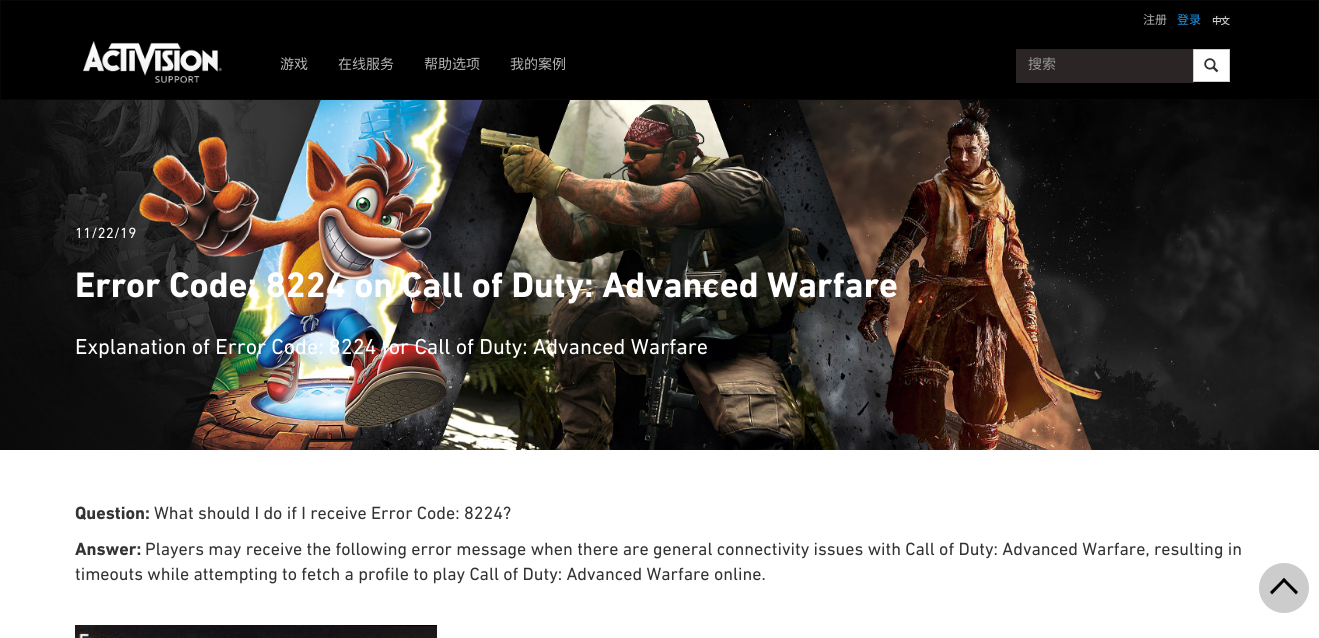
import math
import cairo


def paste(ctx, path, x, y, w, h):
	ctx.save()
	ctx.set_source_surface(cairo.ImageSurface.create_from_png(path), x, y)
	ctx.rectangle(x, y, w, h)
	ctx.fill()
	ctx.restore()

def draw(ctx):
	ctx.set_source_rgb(1, 1, 1)
	ctx.paint()
	ctx.set_source_rgb(0, 0, 0)
	ctx.rectangle(0.5, 0.5, 1318, 99)
	ctx.fill_preserve()
	ctx.set_source_rgb(0.031, 0.031, 0.031)
	ctx.set_line_width(1)
	ctx.stroke()
	ctx.select_font_face('Noto Sans CJK SC')
	ctx.set_font_size(12)
	ctx.set_source_rgb(0.702, 0.714, 0.718)
	ctx.move_to(1143, 24)
	ctx.show_text('注册')
	ctx.set_source_rgb(0.114, 0.608, 0.941)
	ctx.move_to(1177, 24)
	ctx.show_text('登录')
	paste(ctx, 'media/1.png', 1212, 14, 18, 13)
	paste(ctx, 'media/2.png', 83, 41, 139, 42)
	ctx.set_font_size(14)
	ctx.set_source_rgb(0.702, 0.714, 0.718)
	for x, y, s in [
		(280, 69, '游戏'),
		(338, 69, '在线服务'),
		(424, 69, '帮助选项'),
		(510, 69, '我的案例'),
	]:
		ctx.move_to(x, y)
		ctx.show_text(s)
	ctx.set_source_rgb(0.169, 0.145, 0.145)
	ctx.rectangle(1016, 50, 178, 33)
	ctx.fill()
	ctx.set_source_rgb(0.157, 0.133, 0.133)
	ctx.rectangle(1016, 49, 178, 1)
	ctx.fill()
	ctx.set_source_rgb(0.6, 0.6, 0.6)
	ctx.move_to(1028, 69)
	ctx.show_text('搜索')
	ctx.set_source_rgb(1, 1, 1)
	ctx.rectangle(1193.5, 49.5, 36, 32)
	ctx.fill_preserve()
	ctx.set_source_rgb(0.8, 0.8, 0.8)
	ctx.stroke()
	paste(ctx, 'media/3.png', 1204, 58, 15, 15)
	paste(ctx, 'media/4.png', 0, 100, 1319, 350)
	ctx.select_font_face('DIN Next')
	ctx.set_font_size(15)
	ctx.set_source_rgb(1, 1, 1)
	ctx.move_to(75, 238)
	ctx.show_text('11/22/19')
	ctx.select_font_face('DIN Next', cairo.FONT_SLANT_NORMAL, cairo.FONT_WEIGHT_BOLD)
	ctx.set_font_size(36)
	ctx.move_to(75, 297)
	ctx.show_text('Error Code: 8224 on Call of Duty: Advanced Warfare')
	ctx.select_font_face('DIN Next')
	ctx.set_font_size(22)
	ctx.move_to(75, 354)
	ctx.show_text('Explanation of Error Code: 8224 for Call of Duty: Advanced Warfare')
	ctx.select_font_face('DIN Next', cairo.FONT_SLANT_NORMAL, cairo.FONT_WEIGHT_BOLD)
	ctx.set_font_size(18)
	ctx.set_source_rgb(0.2, 0.2, 0.2)
	ctx.move_to(75, 519)
	ctx.show_text('Question:')
	ctx.select_font_face('DIN Next')
	ctx.move_to(154, 519)
	ctx.show_text('What should I do if I receive Error Code: 8224?')
	ctx.select_font_face('DIN Next', cairo.FONT_SLANT_NORMAL, cairo.FONT_WEIGHT_BOLD)
	ctx.move_to(75, 555)
	ctx.show_text('Answer:')
	ctx.select_font_face('DIN Next')
	ctx.move_to(145, 555)
	ctx.show_text('Players may receive the following error message when there are general connectivity issues with Call of Duty: Advanced Warfare, resulting in')
	ctx.move_to(75, 580)
	ctx.show_text('timeouts while attempting to fetch a profile to play Call of Duty: Advanced Warfare online.')
	paste(ctx, 'media/5.png', 75, 625, 362, 13)
	ctx.set_source_rgb(0.8, 0.8, 0.8)
	ctx.arc(1284, 588, 25, 0, 2 * math.pi)
	ctx.fill()
	ctx.set_source_rgb(0, 0, 0)
	ctx.new_path()
	ctx.move_to(1284, 578)
	ctx.line_to(1298, 592)
	ctx.line_to(1296, 594.5)
	ctx.line_to(1282, 580)
	ctx.close_path()
	ctx.fill()
	ctx.new_path()
	ctx.move_to(1284, 578)
	ctx.line_to(1286, 580)
	ctx.line_to(1272, 594.5)
	ctx.line_to(1270, 592)
	ctx.close_path()
	ctx.fill()


surface = cairo.ImageSurface(cairo.FORMAT_RGB24, 1319, 638)
ctx = cairo.Context(surface)
options = cairo.FontOptions()
options.set_hint_metrics(cairo.HINT_METRICS_OFF)
options.set_hint_style(cairo.HINT_STYLE_NONE)
ctx.set_font_options(options)
ctx.set_miter_limit(4)
draw(ctx)
surface.write_to_png('image.png')
